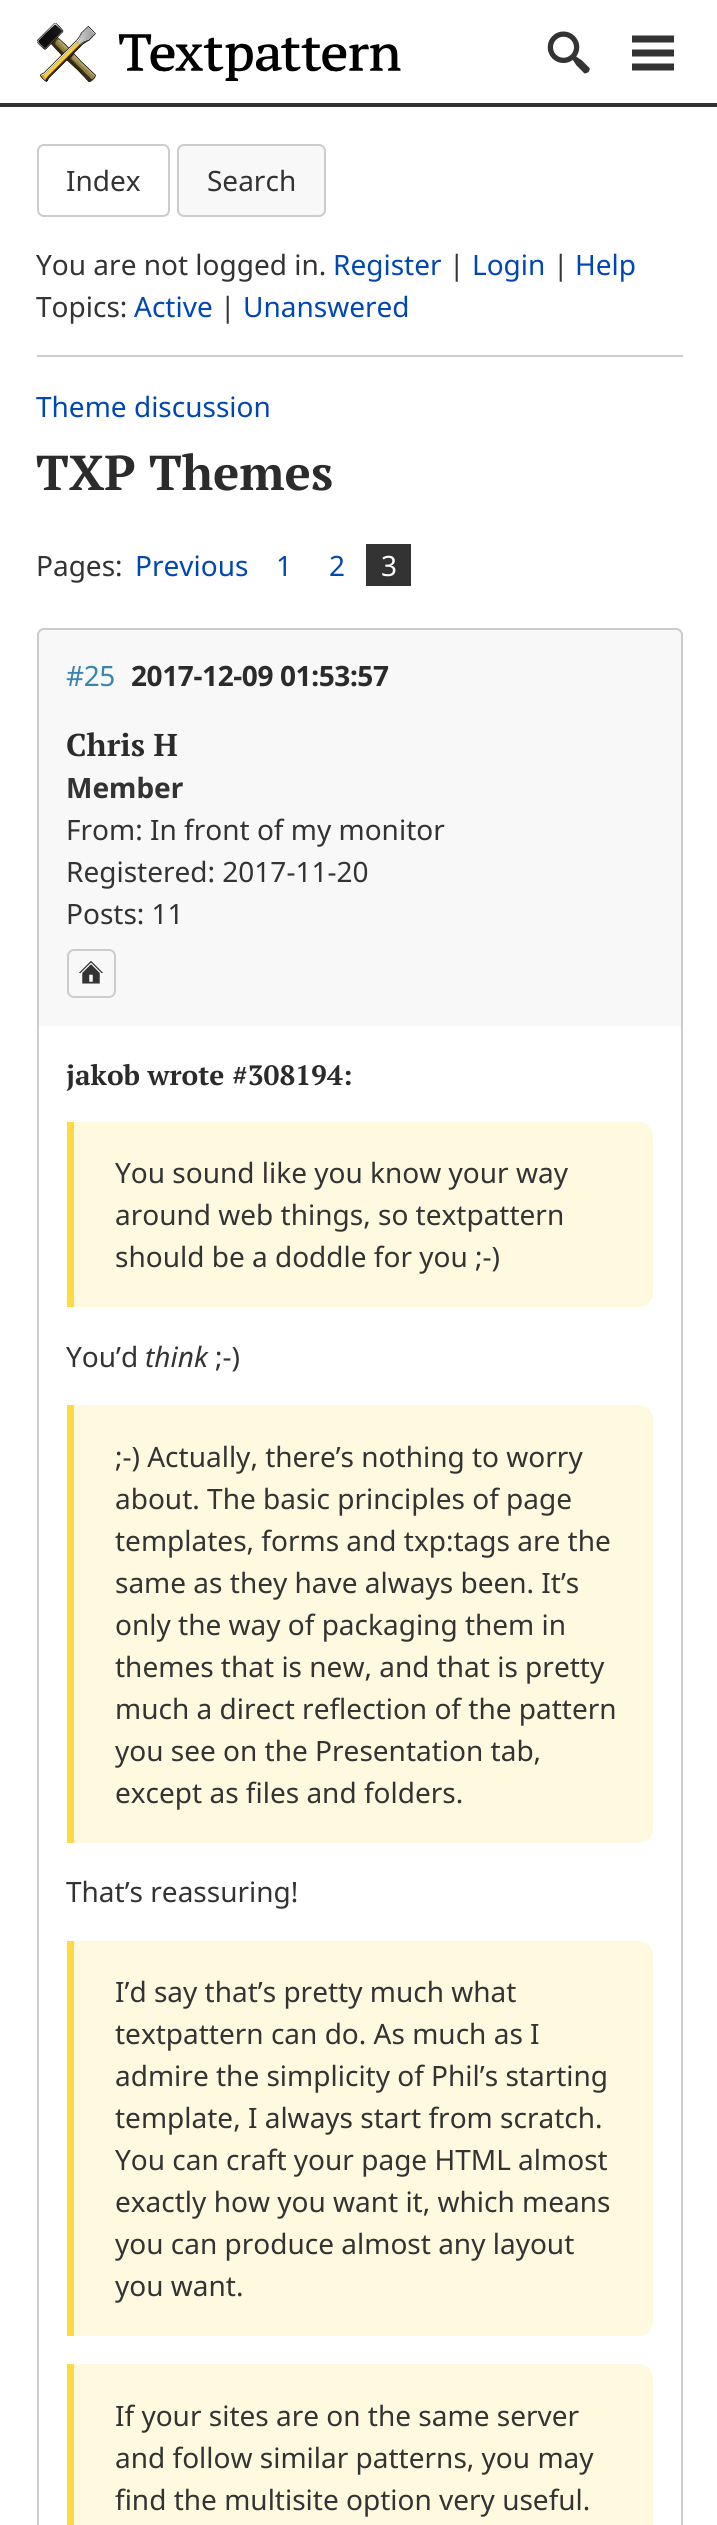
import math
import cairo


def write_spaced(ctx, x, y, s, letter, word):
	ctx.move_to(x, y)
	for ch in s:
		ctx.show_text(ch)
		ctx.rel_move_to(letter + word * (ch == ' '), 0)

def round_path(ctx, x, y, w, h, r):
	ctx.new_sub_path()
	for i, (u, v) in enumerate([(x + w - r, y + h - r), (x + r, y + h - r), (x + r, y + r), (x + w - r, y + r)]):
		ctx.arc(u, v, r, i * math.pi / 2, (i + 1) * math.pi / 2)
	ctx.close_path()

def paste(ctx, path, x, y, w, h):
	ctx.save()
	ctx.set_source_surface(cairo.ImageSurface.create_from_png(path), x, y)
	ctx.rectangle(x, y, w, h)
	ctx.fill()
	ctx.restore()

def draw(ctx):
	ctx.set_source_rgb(1, 1, 1)
	ctx.paint()
	paste(ctx, 'media/1.png', 37, 23, 364, 59)
	paste(ctx, 'media/2.png', 547, 31, 43, 43)
	ctx.set_source_rgb(0.2, 0.2, 0.2)
	ctx.rectangle(0, 103, 717, 4)
	ctx.fill()
	paste(ctx, 'media/3.png', 632, 35, 42, 36)
	round_path(ctx, 38, 145, 131, 71, 6)
	ctx.set_source_rgb(0.8, 0.8, 0.8)
	ctx.stroke()
	ctx.select_font_face('Noto Sans')
	ctx.set_font_size(28)
	ctx.set_source_rgb(0.2, 0.2, 0.2)
	ctx.move_to(66, 191)
	ctx.show_text('Index')
	ctx.set_source_rgb(0.969, 0.969, 0.969)
	round_path(ctx, 178, 145, 147, 71, 6)
	ctx.fill_preserve()
	ctx.set_source_rgb(0.8, 0.8, 0.8)
	ctx.stroke()
	ctx.set_source_rgb(0.2, 0.2, 0.2)
	ctx.move_to(207, 191)
	ctx.show_text('Search')
	ctx.set_source_rgb(0.8, 0.8, 0.8)
	ctx.rectangle(37, 355, 646, 2)
	ctx.fill()
	ctx.set_source_rgb(0.2, 0.2, 0.2)
	ctx.move_to(36, 275)
	ctx.show_text('You are not logged in.')
	ctx.set_source_rgb(0, 0.278, 0.702)
	ctx.move_to(333, 275)
	ctx.show_text('Register')
	ctx.set_source_rgb(0.2, 0.2, 0.2)
	ctx.move_to(449, 275)
	ctx.show_text('|')
	ctx.set_source_rgb(0, 0.278, 0.702)
	ctx.move_to(472, 275)
	ctx.show_text('Login')
	ctx.set_source_rgb(0.2, 0.2, 0.2)
	ctx.move_to(553, 275)
	ctx.show_text('|')
	ctx.set_source_rgb(0, 0.278, 0.702)
	ctx.move_to(575, 275)
	ctx.show_text('Help')
	ctx.set_source_rgb(0.2, 0.2, 0.2)
	ctx.move_to(36, 317)
	ctx.show_text('Topics:')
	ctx.set_source_rgb(0, 0.278, 0.702)
	ctx.move_to(134, 317)
	ctx.show_text('Active')
	ctx.set_source_rgb(0.2, 0.2, 0.2)
	ctx.move_to(220, 317)
	ctx.show_text('|')
	ctx.set_source_rgb(0, 0.278, 0.702)
	ctx.move_to(243, 317)
	ctx.show_text('Unanswered')
	ctx.move_to(36, 417)
	ctx.show_text('Theme discussion')
	ctx.select_font_face('PT Serif', cairo.FONT_SLANT_NORMAL, cairo.FONT_WEIGHT_BOLD)
	ctx.set_font_size(49)
	ctx.set_source_rgb(0.169, 0.169, 0.169)
	ctx.move_to(36, 490)
	ctx.show_text('TXP Themes')
	ctx.select_font_face('Noto Sans')
	ctx.set_font_size(28)
	ctx.set_source_rgb(0.2, 0.2, 0.2)
	ctx.move_to(36, 576)
	ctx.show_text('Pages:')
	ctx.set_source_rgb(0, 0.278, 0.702)
	for x, y, s in [
		(135, 576, 'Previous'),
		(276, 576, '1'),
		(329, 576, '2'),
	]:
		ctx.move_to(x, y)
		ctx.show_text(s)
	ctx.set_source_rgb(0.2, 0.2, 0.2)
	ctx.rectangle(366, 544, 45, 42)
	ctx.fill()
	ctx.set_source_rgb(1, 1, 1)
	ctx.move_to(381, 576)
	ctx.show_text('3')
	ctx.set_source_rgb(0.969, 0.969, 0.969)
	round_path(ctx, 38, 629, 644, 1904, 6)
	ctx.fill_preserve()
	ctx.set_source_rgb(0.8, 0.8, 0.8)
	ctx.stroke()
	ctx.set_source_rgb(0.224, 0.525, 0.675)
	write_spaced(ctx, 66, 686, '#25', -0.4, 0)
	ctx.select_font_face('Noto Sans', cairo.FONT_SLANT_NORMAL, cairo.FONT_WEIGHT_BOLD)
	ctx.set_source_rgb(0.169, 0.169, 0.169)
	write_spaced(ctx, 131, 686, '2017-12-09 01:53:57', -0.4, 0)
	ctx.select_font_face('PT Serif', cairo.FONT_SLANT_NORMAL, cairo.FONT_WEIGHT_BOLD)
	ctx.set_font_size(31.5)
	ctx.move_to(66, 756)
	ctx.show_text('Chris H')
	ctx.select_font_face('Noto Sans', cairo.FONT_SLANT_NORMAL, cairo.FONT_WEIGHT_BOLD)
	ctx.set_font_size(28)
	ctx.set_source_rgb(0.2, 0.2, 0.2)
	ctx.move_to(66, 798)
	ctx.show_text('Member')
	ctx.select_font_face('Noto Sans')
	for x, y, s in [
		(66, 840, 'From: In front of my monitor'),
		(66, 882, 'Registered: 2017-11-20'),
		(66, 924, 'Posts: 11'),
	]:
		ctx.move_to(x, y)
		ctx.show_text(s)
	round_path(ctx, 68, 950, 47, 47, 6)
	ctx.set_source_rgb(0.8, 0.8, 0.8)
	ctx.stroke()
	paste(ctx, 'media/4.png', 78, 960, 26, 24)
	ctx.set_source_rgb(1, 1, 1)
	ctx.rectangle(39, 1026, 642, 1499)
	ctx.fill()
	ctx.select_font_face('PT Serif', cairo.FONT_SLANT_NORMAL, cairo.FONT_WEIGHT_BOLD)
	ctx.set_source_rgb(0.169, 0.169, 0.169)
	ctx.move_to(66, 1085)
	ctx.show_text('jakob wrote #308194:')
	ctx.set_source_rgb(1, 0.976, 0.878)
	ctx.new_path()
	ctx.move_to(67, 1122)
	ctx.line_to(639, 1122)
	ctx.curve_to(646.5, 1122, 653, 1128.5, 653, 1136)
	ctx.line_to(653, 1293)
	ctx.curve_to(653, 1300.5, 646.5, 1307, 639, 1307)
	ctx.line_to(67, 1307)
	ctx.close_path()
	ctx.fill()
	ctx.set_source_rgb(1, 0.851, 0.259)
	ctx.rectangle(67, 1122, 7, 185)
	ctx.fill()
	ctx.select_font_face('Noto Sans')
	ctx.set_source_rgb(0.2, 0.2, 0.2)
	for x, y, s in [
		(115, 1183, 'You sound like you know your way'),
		(115, 1225, 'around web things, so textpattern'),
		(115, 1267, 'should be a doddle for you ;-)'),
		(66, 1367, 'You’d'),
	]:
		ctx.move_to(x, y)
		ctx.show_text(s)
	ctx.select_font_face('Noto Sans', cairo.FONT_SLANT_ITALIC)
	ctx.move_to(145, 1367)
	ctx.show_text('think')
	ctx.select_font_face('Noto Sans')
	ctx.move_to(215, 1367)
	ctx.show_text(';-)')
	ctx.set_source_rgb(1, 0.976, 0.878)
	ctx.new_path()
	ctx.move_to(67, 1405)
	ctx.line_to(639, 1405)
	ctx.curve_to(646.5, 1405, 653, 1411.5, 653, 1419)
	ctx.line_to(653, 1829)
	ctx.curve_to(653, 1836.5, 646.5, 1843, 639, 1843)
	ctx.line_to(67, 1843)
	ctx.close_path()
	ctx.fill()
	ctx.set_source_rgb(1, 0.851, 0.259)
	ctx.rectangle(67, 1405, 7, 438)
	ctx.fill()
	ctx.set_source_rgb(0.2, 0.2, 0.2)
	for x, y, s in [
		(115, 1467, ';-) Actually, there’s nothing to worry'),
		(115, 1509, 'about. The basic principles of page'),
		(115, 1551, 'templates, forms and txp:tags are the'),
		(115, 1593, 'same as they have always been. It’s'),
		(115, 1635, 'only the way of packaging them in'),
		(115, 1677, 'themes that is new, and that is pretty'),
		(115, 1719, 'much a direct reflection of the pattern'),
		(115, 1761, 'you see on the Presentation tab,'),
		(115, 1803, 'except as files and folders.'),
		(66, 1902, 'That’s reassuring!'),
	]:
		ctx.move_to(x, y)
		ctx.show_text(s)
	ctx.set_source_rgb(1, 0.976, 0.878)
	ctx.new_path()
	ctx.move_to(67, 1941)
	ctx.line_to(639, 1941)
	ctx.curve_to(646.5, 1941, 653, 1947.5, 653, 1955)
	ctx.line_to(653, 2322)
	ctx.curve_to(653, 2329.5, 646.5, 2336, 639, 2336)
	ctx.line_to(67, 2336)
	ctx.close_path()
	ctx.fill()
	ctx.set_source_rgb(1, 0.851, 0.259)
	ctx.rectangle(67, 1941, 7, 395)
	ctx.fill()
	ctx.set_source_rgb(0.2, 0.2, 0.2)
	for x, y, s in [
		(115, 2002, 'I’d say that’s pretty much what'),
		(115, 2044, 'textpattern can do. As much as I'),
		(115, 2086, 'admire the simplicity of Phil’s starting'),
		(115, 2128, 'template, I always start from scratch.'),
		(115, 2170, 'You can craft your page HTML almost'),
		(115, 2212, 'exactly how you want it, which means'),
		(115, 2254, 'you can produce almost any layout'),
		(115, 2296, 'you want.'),
	]:
		ctx.move_to(x, y)
		ctx.show_text(s)
	ctx.set_source_rgb(1, 0.976, 0.878)
	ctx.new_path()
	ctx.move_to(67, 2364)
	ctx.line_to(639, 2364)
	ctx.curve_to(646.5, 2364, 653, 2370.5, 653, 2378)
	ctx.line_to(653, 2525)
	ctx.curve_to(653, 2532.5, 646.5, 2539, 639, 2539)
	ctx.line_to(67, 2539)
	ctx.close_path()
	ctx.fill()
	ctx.set_source_rgb(1, 0.851, 0.259)
	ctx.rectangle(67, 2364, 7, 161)
	ctx.fill()
	ctx.set_source_rgb(0.2, 0.2, 0.2)
	for x, y, s in [
		(115, 2426, 'If your sites are on the same server'),
		(115, 2468, 'and follow similar patterns, you may'),
		(115, 2510, 'find the multisite option very useful.'),
	]:
		ctx.move_to(x, y)
		ctx.show_text(s)


surface = cairo.ImageSurface(cairo.FORMAT_RGB24, 717, 2525)
ctx = cairo.Context(surface)
options = cairo.FontOptions()
options.set_hint_metrics(cairo.HINT_METRICS_OFF)
options.set_hint_style(cairo.HINT_STYLE_NONE)
ctx.set_font_options(options)
ctx.set_miter_limit(4)
draw(ctx)
surface.write_to_png('image.png')
